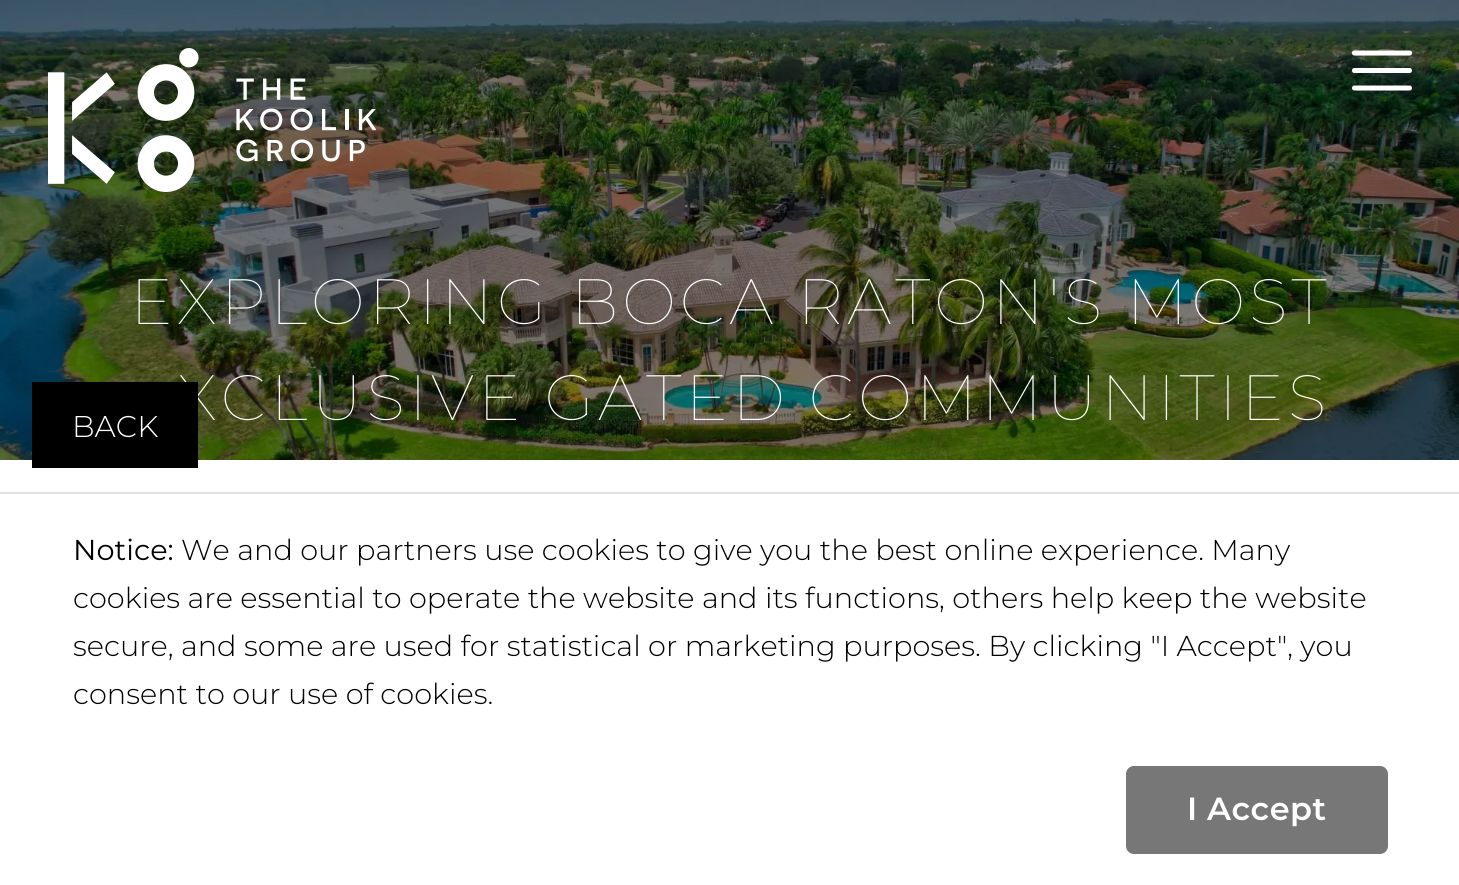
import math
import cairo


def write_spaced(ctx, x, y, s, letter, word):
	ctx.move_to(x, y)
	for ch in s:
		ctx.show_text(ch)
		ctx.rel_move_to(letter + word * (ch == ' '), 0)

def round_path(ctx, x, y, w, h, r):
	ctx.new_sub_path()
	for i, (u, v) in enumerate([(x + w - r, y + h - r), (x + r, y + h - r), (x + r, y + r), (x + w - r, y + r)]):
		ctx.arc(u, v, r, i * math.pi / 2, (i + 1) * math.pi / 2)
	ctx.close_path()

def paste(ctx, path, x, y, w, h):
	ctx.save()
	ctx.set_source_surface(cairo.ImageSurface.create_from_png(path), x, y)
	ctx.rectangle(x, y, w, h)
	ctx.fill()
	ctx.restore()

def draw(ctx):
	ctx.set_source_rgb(1, 1, 1)
	ctx.paint()
	ctx.set_source_rgb(0, 0, 0)
	ctx.rectangle(0, 0, 1459, 460)
	ctx.fill()
	paste(ctx, 'media/3.png', 0, 0, 1459, 460)
	paste(ctx, 'media/1.png', 48, 48, 328, 144)
	paste(ctx, 'media/2.png', 1352, 50, 60, 41)
	ctx.select_font_face('Montserrat Thin')
	ctx.set_font_size(64)
	ctx.set_source_rgb(1, 1, 1)
	write_spaced(ctx, 130, 324, 'EXPLORING BOCA RATON\'S MOST', 4, 0)
	write_spaced(ctx, 177, 420, 'XCLUSIVE GATED COMMUNITIES', 4, 0)
	ctx.set_source_rgb(0, 0, 0)
	ctx.rectangle(32, 382, 166, 86)
	ctx.fill()
	ctx.select_font_face('Montserrat Light')
	ctx.set_font_size(30)
	ctx.set_source_rgb(1, 1, 1)
	ctx.move_to(72, 437)
	ctx.show_text('BACK')
	ctx.set_source_rgb(0.882, 0.878, 0.89)
	ctx.rectangle(0, 492, 1459, 2)
	ctx.fill()
	ctx.select_font_face('Montserrat')
	ctx.set_font_size(28.8)
	ctx.set_source_rgb(0, 0, 0)
	ctx.move_to(73, 560)
	ctx.show_text('Notice:')
	ctx.select_font_face('Montserrat Light')
	for x, y, s in [
		(181, 560, 'We and our partners use cookies to give you the best online experience. Many'),
		(73, 608, 'cookies are essential to operate the website and its functions, others help keep the website'),
		(73, 656, 'secure, and some are used for statistical or marketing purposes. By clicking "I Accept", you'),
		(73, 704, 'consent to our use of cookies.'),
	]:
		ctx.move_to(x, y)
		ctx.show_text(s)
	ctx.set_source_rgb(0.467, 0.467, 0.467)
	round_path(ctx, 1126, 766, 262, 88, 8)
	ctx.fill()
	ctx.select_font_face('Montserrat SemiBold')
	ctx.set_font_size(32)
	ctx.set_source_rgb(1, 1, 1)
	write_spaced(ctx, 1187, 820, 'I Accept', 0.5, 0)


surface = cairo.ImageSurface(cairo.FORMAT_RGB24, 1459, 885)
ctx = cairo.Context(surface)
options = cairo.FontOptions()
options.set_hint_metrics(cairo.HINT_METRICS_OFF)
options.set_hint_style(cairo.HINT_STYLE_NONE)
ctx.set_font_options(options)
ctx.set_miter_limit(4)
draw(ctx)
surface.write_to_png('image.png')
